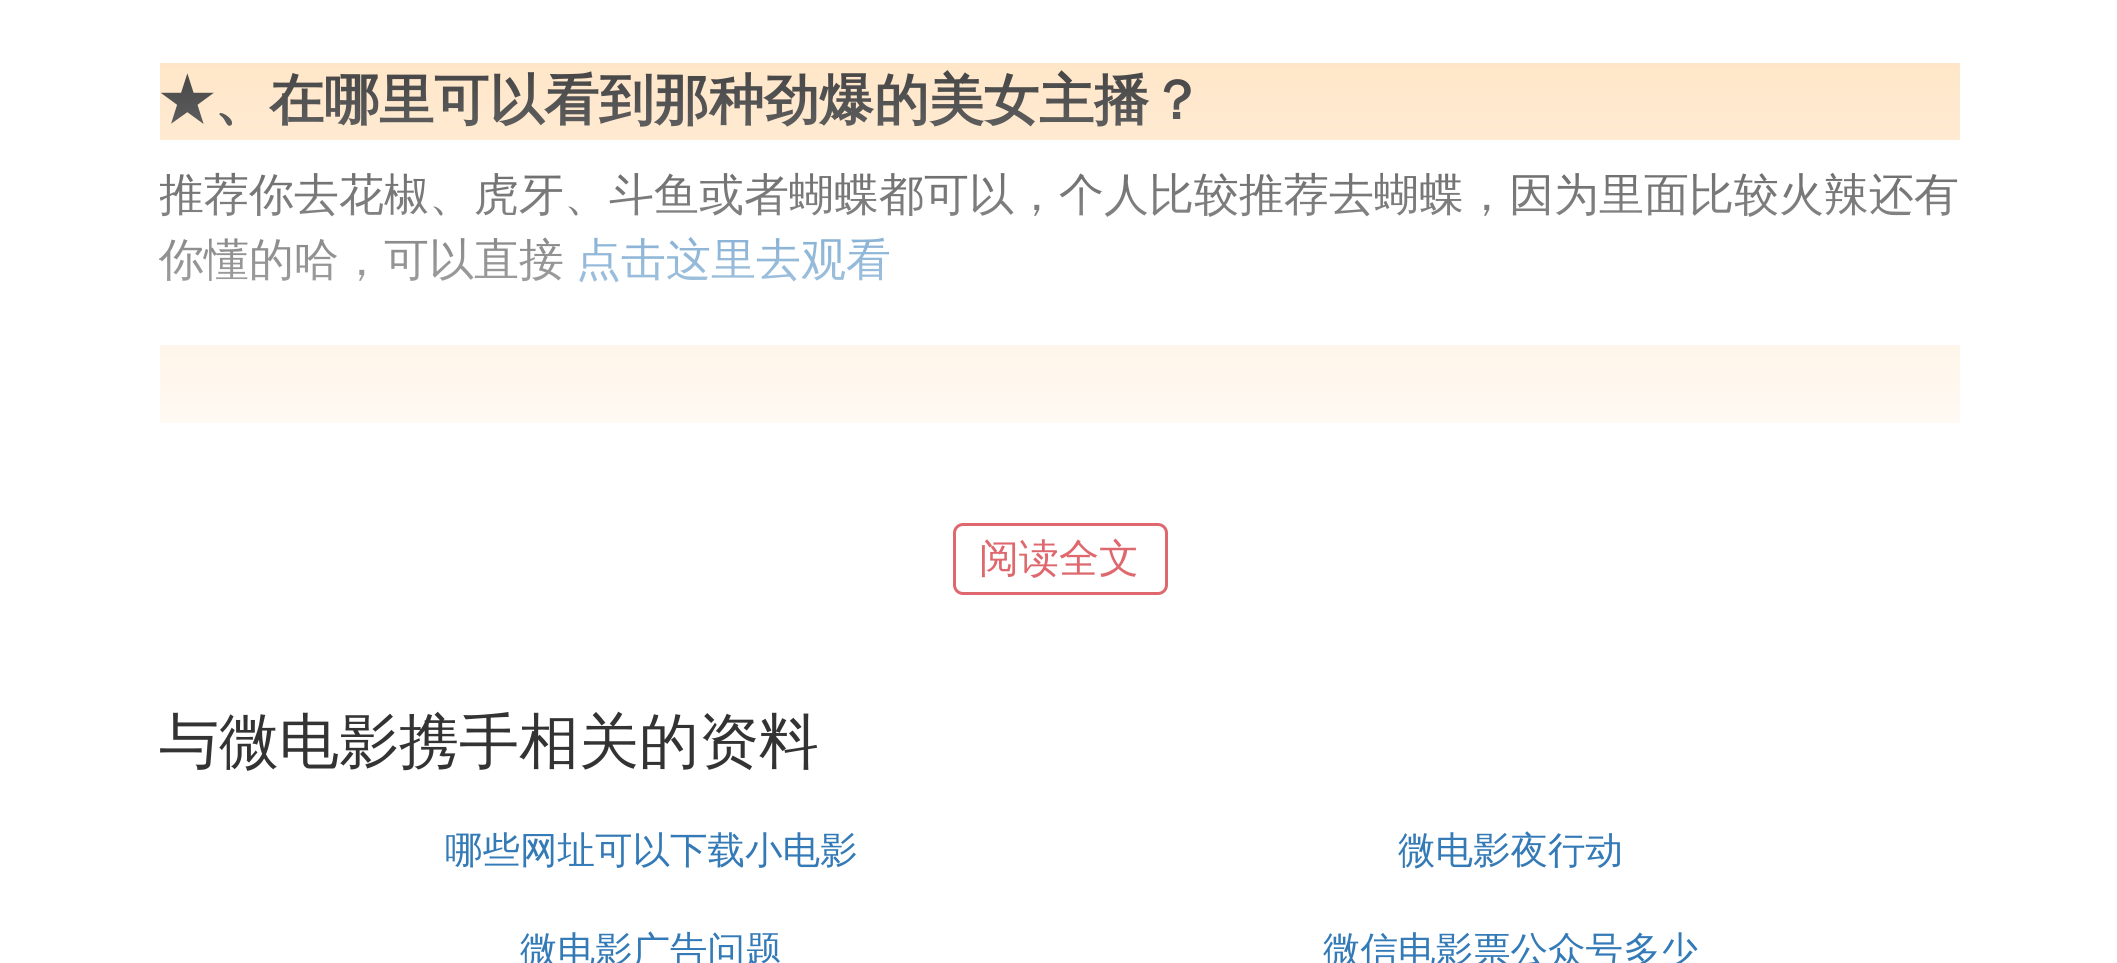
import math
import cairo


def round_path(ctx, x, y, w, h, r):
	ctx.new_sub_path()
	for i, (u, v) in enumerate([(x + w - r, y + h - r), (x + r, y + h - r), (x + r, y + r), (x + w - r, y + r)]):
		ctx.arc(u, v, r, i * math.pi / 2, (i + 1) * math.pi / 2)
	ctx.close_path()

def draw(ctx):
	ctx.set_source_rgb(1, 1, 1)
	ctx.paint()
	ctx.set_source_rgb(1, 0.894, 0.769)
	ctx.rectangle(160, 63, 1800, 77)
	ctx.fill()
	ctx.select_font_face('WenQuanYi Zen Hei', cairo.FONT_SLANT_NORMAL, cairo.FONT_WEIGHT_BOLD)
	ctx.set_font_size(55)
	ctx.set_source_rgb(0.2, 0.2, 0.2)
	ctx.move_to(159, 119)
	ctx.show_text('★、在哪里可以看到那种劲爆的美女主播？')
	ctx.save()
	ctx.rectangle(160, 0, 1800, 523)
	ctx.clip()
	ctx.select_font_face('WenQuanYi Zen Hei Medium')
	ctx.set_font_size(45)
	ctx.move_to(159, 210)
	ctx.show_text('推荐你去花椒、虎牙、斗鱼或者蝴蝶都可以，个人比较推荐去蝴蝶，因为里面比较火辣还有')
	ctx.restore()
	ctx.select_font_face('WenQuanYi Zen Hei Medium')
	ctx.set_font_size(45)
	ctx.move_to(159, 275)
	ctx.show_text('你懂的哈，可以直接')
	ctx.set_source_rgb(0.2, 0.478, 0.718)
	ctx.move_to(576, 275)
	ctx.show_text('点击这里去观看')
	ctx.set_source_rgb(1, 0.894, 0.769)
	ctx.rectangle(160, 345, 1800, 78)
	ctx.fill()
	gradient = cairo.LinearGradient(160, 23, 160, 523)
	gradient.add_color_stop_rgba(0, 1, 1, 1, 0)
	gradient.add_color_stop_rgba(1, 1, 1, 1, 1)
	ctx.set_source(gradient)
	ctx.rectangle(160, 63, 1800, 360)
	ctx.fill()
	round_path(ctx, 954.5, 524.5, 212, 69, 8.5)
	ctx.set_source_rgb(0.871, 0.408, 0.427)
	ctx.set_line_width(3)
	ctx.stroke()
	ctx.set_font_size(40)
	ctx.move_to(979, 572)
	ctx.show_text('阅读全文')
	ctx.set_font_size(60)
	ctx.set_source_rgb(0.2, 0.2, 0.2)
	ctx.move_to(159, 762)
	ctx.show_text('与微电影携手相关的资料')
	ctx.set_font_size(37.5)
	ctx.set_source_rgb(0.2, 0.478, 0.718)
	for x, y, s in [
		(445, 863, '哪些网址可以下载小电影'),
		(1398, 863, '微电影夜行动'),
		(520, 963, '微电影广告问题'),
		(1323, 963, '微信电影票公众号多少'),
	]:
		ctx.move_to(x, y)
		ctx.show_text(s)


surface = cairo.ImageSurface(cairo.FORMAT_RGB24, 2117, 963)
ctx = cairo.Context(surface)
options = cairo.FontOptions()
options.set_hint_metrics(cairo.HINT_METRICS_OFF)
options.set_hint_style(cairo.HINT_STYLE_NONE)
ctx.set_font_options(options)
ctx.set_miter_limit(4)
draw(ctx)
surface.write_to_png('image.png')
